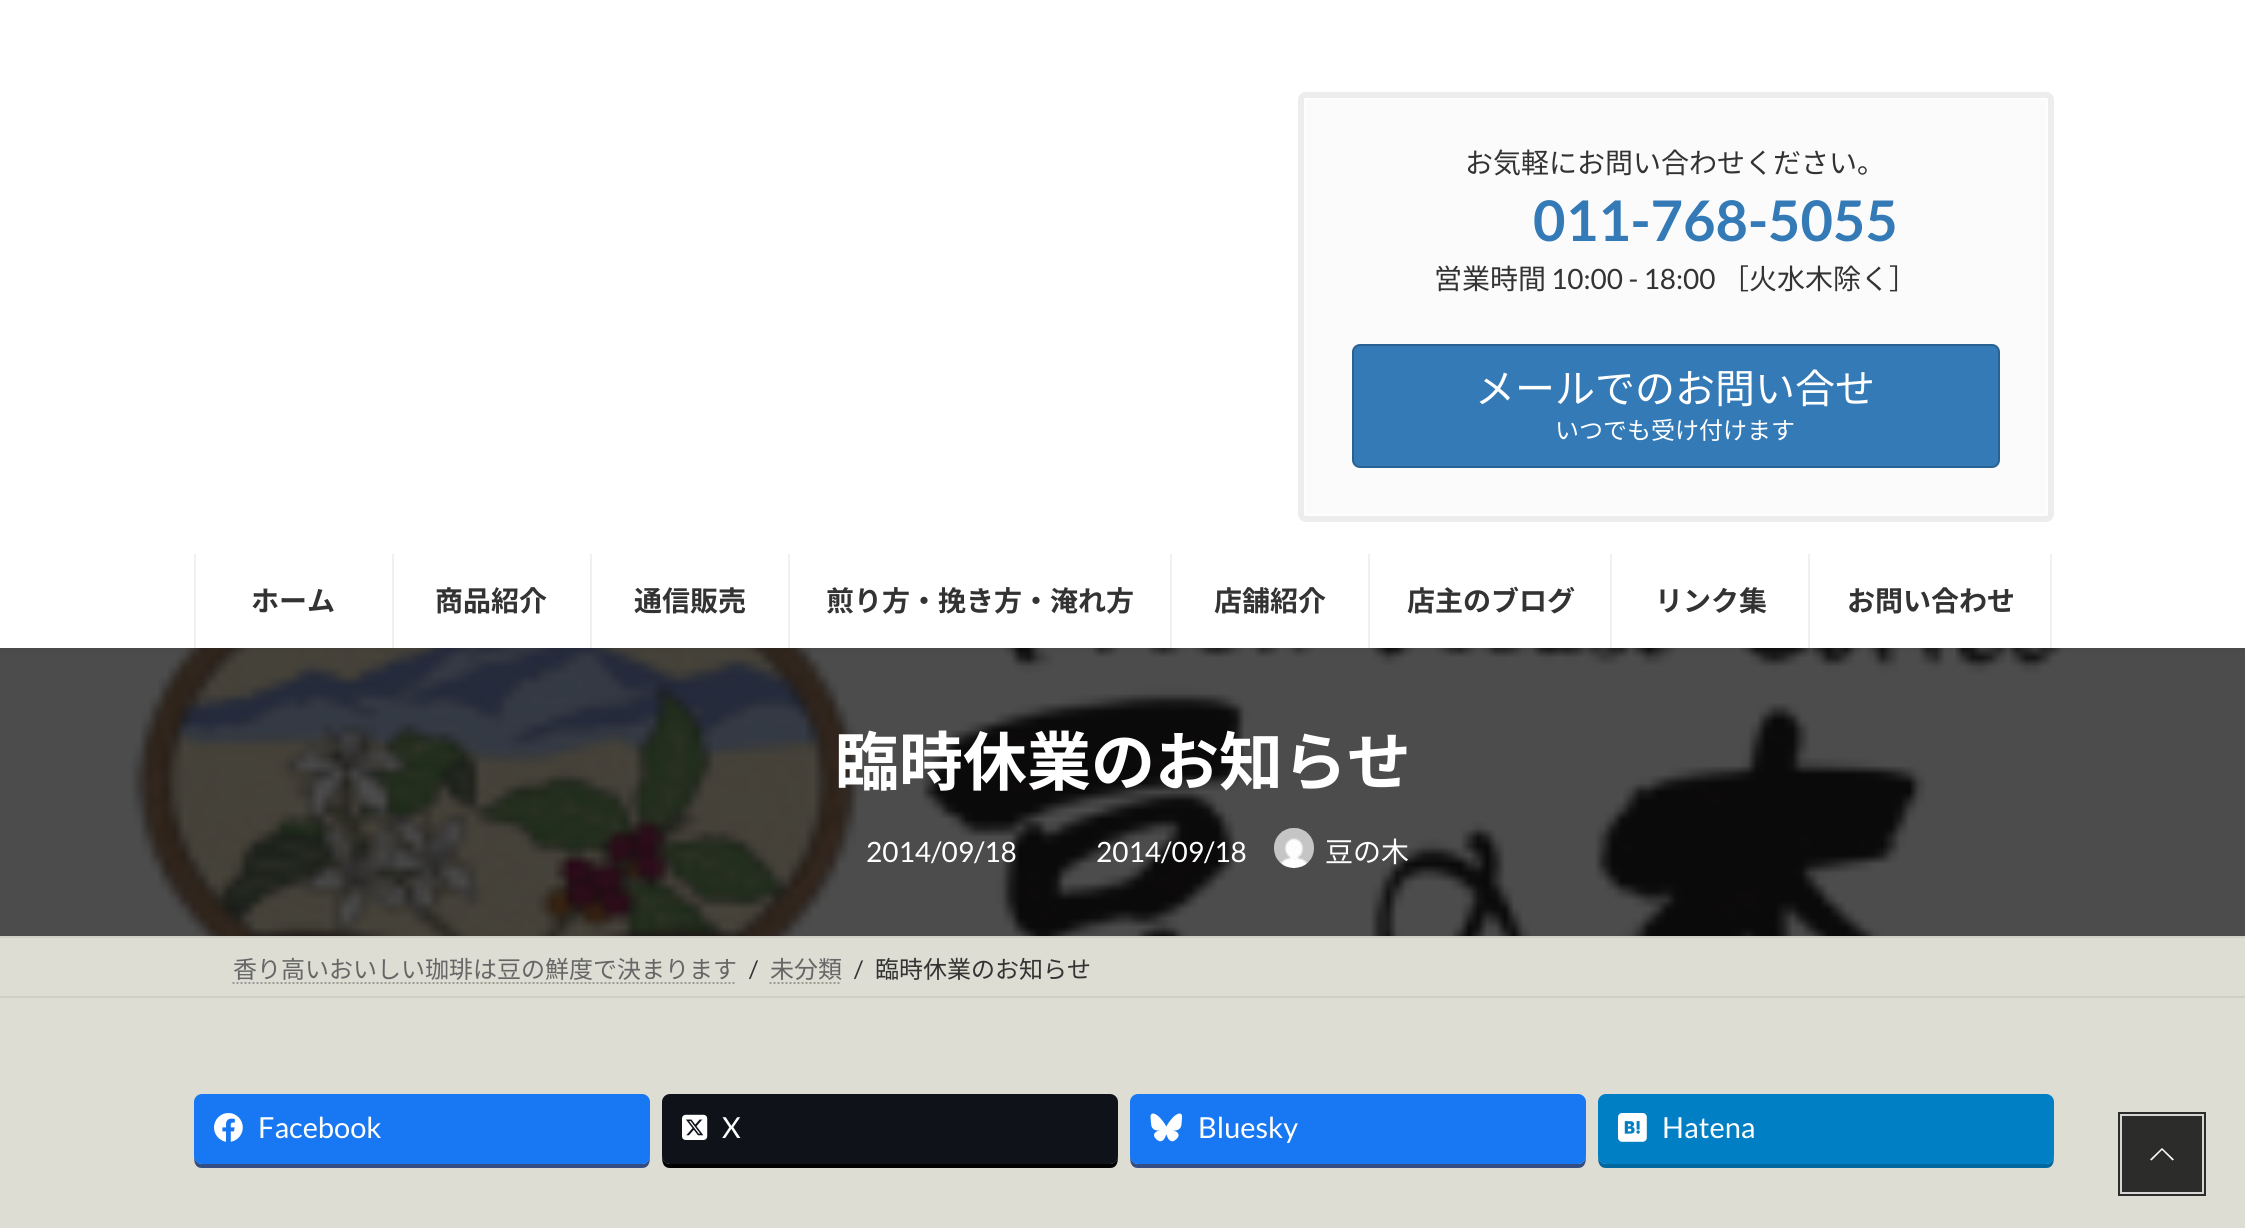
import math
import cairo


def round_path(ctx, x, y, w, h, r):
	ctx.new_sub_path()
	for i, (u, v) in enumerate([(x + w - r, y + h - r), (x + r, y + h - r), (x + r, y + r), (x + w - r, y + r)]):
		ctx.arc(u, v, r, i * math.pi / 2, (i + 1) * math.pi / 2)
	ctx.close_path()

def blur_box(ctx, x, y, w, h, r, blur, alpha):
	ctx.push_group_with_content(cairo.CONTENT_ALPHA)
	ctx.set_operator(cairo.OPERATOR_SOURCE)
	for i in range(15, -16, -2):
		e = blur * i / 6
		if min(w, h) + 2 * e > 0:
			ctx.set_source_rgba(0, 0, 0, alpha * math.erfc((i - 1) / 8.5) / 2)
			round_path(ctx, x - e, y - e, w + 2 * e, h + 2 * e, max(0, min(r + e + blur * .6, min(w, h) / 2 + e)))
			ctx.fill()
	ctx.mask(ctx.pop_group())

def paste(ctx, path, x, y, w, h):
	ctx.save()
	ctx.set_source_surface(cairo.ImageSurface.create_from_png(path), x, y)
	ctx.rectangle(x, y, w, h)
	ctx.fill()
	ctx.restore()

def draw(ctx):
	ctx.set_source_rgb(0.867, 0.867, 0.831)
	ctx.paint()
	paste(ctx, 'media/1.png', 0, 648, 2245, 288)
	ctx.set_source_rgb(0, 0, 0)
	blur_box(ctx, 0, -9, 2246, 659, 0, 3, 0.05)
	ctx.set_source_rgb(1, 1, 1)
	ctx.rectangle(0, 0, 2245, 648)
	ctx.fill()
	round_path(ctx, 1301, 95, 750, 424, 5)
	ctx.set_source_rgb(0.929, 0.929, 0.929)
	ctx.set_line_width(6)
	ctx.stroke()
	ctx.set_source_rgb(0.984, 0.984, 0.984)
	round_path(ctx, 1304, 98, 744, 418, 2)
	ctx.fill()
	ctx.set_source_rgb(0.996, 0.996, 0.996)
	ctx.set_fill_rule(cairo.FILL_RULE_EVEN_ODD)
	ctx.new_path()
	ctx.move_to(1306, 98)
	ctx.curve_to(1305, 98, 1304, 99, 1304, 100)
	ctx.line_to(1304, 514)
	ctx.curve_to(1304, 515, 1305, 516, 1306, 516)
	ctx.line_to(2046, 516)
	ctx.curve_to(2047, 516, 2048, 515, 2048, 514)
	ctx.line_to(2048, 100)
	ctx.curve_to(2048, 99, 2047, 98, 2046, 98)
	ctx.close_path()
	ctx.move_to(1306, 100)
	ctx.line_to(1306, 514)
	ctx.line_to(2046, 514)
	ctx.line_to(2046, 100)
	ctx.close_path()
	ctx.fill()
	ctx.select_font_face('Noto Sans JP')
	ctx.set_font_size(28)
	ctx.set_source_rgb(0.2, 0.2, 0.2)
	ctx.move_to(1465, 173)
	ctx.show_text('お気軽にお問い合わせください。')
	ctx.select_font_face('Lato', cairo.FONT_SLANT_NORMAL, cairo.FONT_WEIGHT_BOLD)
	ctx.set_font_size(56)
	ctx.set_source_rgb(0.2, 0.478, 0.718)
	ctx.move_to(1533, 241)
	ctx.show_text('011-768-5055')
	ctx.select_font_face('Noto Sans JP')
	ctx.set_font_size(28)
	ctx.set_source_rgb(0.2, 0.2, 0.2)
	ctx.move_to(1434, 289)
	ctx.show_text('営業時間')
	ctx.select_font_face('Lato')
	ctx.move_to(1551, 289)
	ctx.show_text('10:00 - 18:00')
	ctx.select_font_face('Noto Sans JP')
	ctx.move_to(1721, 289)
	ctx.show_text('［火水木除く］')
	ctx.set_source_rgb(0.2, 0.478, 0.718)
	round_path(ctx, 1353, 345, 646, 122, 7)
	ctx.fill_preserve()
	ctx.set_source_rgb(0.161, 0.384, 0.573)
	ctx.set_line_width(2)
	ctx.stroke()
	ctx.set_font_size(40)
	ctx.set_source_rgb(1, 1, 1)
	ctx.move_to(1475, 403)
	ctx.show_text('メールでのお問い合せ')
	ctx.set_font_size(24)
	ctx.move_to(1555, 439)
	ctx.show_text('いつでも受け付けます')
	ctx.set_source_rgb(0.941, 0.941, 0.941)
	ctx.rectangle(392, 554, 2, 94)
	ctx.fill()
	ctx.rectangle(194, 554, 2, 94)
	ctx.fill()
	ctx.select_font_face('Noto Sans JP', cairo.FONT_SLANT_NORMAL, cairo.FONT_WEIGHT_BOLD)
	ctx.set_font_size(28)
	ctx.set_source_rgb(0.2, 0.2, 0.2)
	ctx.move_to(251, 611)
	ctx.show_text('ホーム')
	ctx.set_source_rgb(0.941, 0.941, 0.941)
	ctx.rectangle(590, 554, 2, 94)
	ctx.fill()
	ctx.set_source_rgb(0.2, 0.2, 0.2)
	ctx.move_to(435, 611)
	ctx.show_text('商品紹介')
	ctx.set_source_rgb(0.941, 0.941, 0.941)
	ctx.rectangle(788, 554, 2, 94)
	ctx.fill()
	ctx.set_source_rgb(0.2, 0.2, 0.2)
	ctx.move_to(634, 611)
	ctx.show_text('通信販売')
	ctx.set_source_rgb(0.941, 0.941, 0.941)
	ctx.rectangle(1170, 554, 2, 94)
	ctx.fill()
	ctx.set_source_rgb(0.2, 0.2, 0.2)
	ctx.move_to(826, 611)
	ctx.show_text('煎り方・挽き方・淹れ方')
	ctx.set_source_rgb(0.941, 0.941, 0.941)
	ctx.rectangle(1368, 554, 2, 94)
	ctx.fill()
	ctx.set_source_rgb(0.2, 0.2, 0.2)
	ctx.move_to(1214, 611)
	ctx.show_text('店舗紹介')
	ctx.set_source_rgb(0.941, 0.941, 0.941)
	ctx.rectangle(1610, 554, 2, 94)
	ctx.fill()
	ctx.set_source_rgb(0.2, 0.2, 0.2)
	ctx.move_to(1407, 611)
	ctx.show_text('店主のブログ')
	ctx.set_source_rgb(0.941, 0.941, 0.941)
	ctx.rectangle(1808, 554, 2, 94)
	ctx.fill()
	ctx.set_source_rgb(0.2, 0.2, 0.2)
	ctx.move_to(1655, 611)
	ctx.show_text('リンク集')
	ctx.set_source_rgb(0.941, 0.941, 0.941)
	ctx.rectangle(2050, 554, 2, 94)
	ctx.fill()
	ctx.set_source_rgb(0.2, 0.2, 0.2)
	ctx.move_to(1847, 611)
	ctx.show_text('お問い合わせ')
	ctx.set_font_size(64)
	ctx.set_source_rgb(1, 1, 1)
	ctx.move_to(835, 785)
	ctx.show_text('臨時休業のお知らせ')
	ctx.select_font_face('Lato')
	ctx.set_font_size(28)
	ctx.move_to(866, 862)
	ctx.show_text('2014/09/18')
	ctx.move_to(1096, 862)
	ctx.show_text('2014/09/18')
	paste(ctx, 'media/2.png', 1274, 828, 40, 40)
	ctx.select_font_face('Noto Sans JP')
	ctx.move_to(1325, 862)
	ctx.show_text('豆の木')
	ctx.set_source_rgb(0.816, 0.816, 0.78)
	ctx.rectangle(0, 936, 2245, 2)
	ctx.fill()
	ctx.rectangle(0, 996, 2245, 2)
	ctx.fill()
	ctx.set_font_size(24)
	ctx.set_source_rgb(0.4, 0.4, 0.4)
	ctx.move_to(233, 978)
	ctx.show_text('香り高いおいしい珈琲は豆の鮮度で決まります')
	ctx.new_path()
	ctx.move_to(232.5, 983)
	ctx.line_to(736.5, 983)
	ctx.set_source_rgb(0.608, 0.608, 0.58)
	ctx.set_dash([2, 2])
	ctx.stroke()
	ctx.select_font_face('Lato')
	ctx.set_source_rgb(0.2, 0.2, 0.2)
	ctx.move_to(749, 978)
	ctx.show_text('/')
	ctx.select_font_face('Noto Sans JP')
	ctx.set_source_rgb(0.4, 0.4, 0.4)
	ctx.move_to(770, 978)
	ctx.show_text('未分類')
	ctx.new_path()
	ctx.move_to(769.5, 983)
	ctx.line_to(841.5, 983)
	ctx.set_source_rgb(0.608, 0.608, 0.58)
	ctx.stroke()
	ctx.select_font_face('Lato')
	ctx.set_source_rgb(0.2, 0.2, 0.2)
	ctx.move_to(854, 978)
	ctx.show_text('/')
	ctx.select_font_face('Noto Sans JP')
	ctx.move_to(875, 978)
	ctx.show_text('臨時休業のお知らせ')
	ctx.set_source_rgb(0.204, 0.306, 0.518)
	ctx.set_fill_rule(cairo.FILL_RULE_WINDING)
	ctx.new_path()
	ctx.move_to(194, 1156)
	ctx.curve_to(194, 1162, 195, 1168, 202, 1168)
	ctx.line_to(642, 1168)
	ctx.curve_to(649, 1168, 650, 1162, 650, 1156)
	ctx.curve_to(650, 1160, 646, 1164, 642, 1164)
	ctx.line_to(202, 1164)
	ctx.curve_to(198, 1164, 194, 1160, 194, 1156)
	ctx.close_path()
	ctx.fill()
	ctx.set_source_rgb(0.094, 0.467, 0.949)
	round_path(ctx, 194, 1094, 456, 70, 8)
	ctx.fill()
	paste(ctx, 'media/3.png', 214, 1113, 29, 29)
	ctx.select_font_face('Lato')
	ctx.set_font_size(29)
	ctx.set_source_rgb(1, 1, 1)
	ctx.move_to(258, 1138)
	ctx.show_text('Facebook')
	ctx.set_source_rgb(0, 0, 0)
	ctx.new_path()
	ctx.move_to(662, 1156)
	ctx.curve_to(662, 1162, 663, 1168, 670, 1168)
	ctx.line_to(1110, 1168)
	ctx.curve_to(1117, 1168, 1118, 1162, 1118, 1156)
	ctx.curve_to(1118, 1160, 1114, 1164, 1110, 1164)
	ctx.line_to(670, 1164)
	ctx.curve_to(666, 1164, 662, 1160, 662, 1156)
	ctx.close_path()
	ctx.fill()
	ctx.set_source_rgb(0.059, 0.078, 0.098)
	round_path(ctx, 662, 1094, 456, 70, 8)
	ctx.fill()
	paste(ctx, 'media/4.png', 682, 1114, 26, 26)
	ctx.set_source_rgb(1, 1, 1)
	ctx.move_to(722, 1138)
	ctx.show_text('X')
	ctx.set_source_rgb(0.204, 0.306, 0.518)
	ctx.new_path()
	ctx.move_to(1130, 1156)
	ctx.curve_to(1130, 1162, 1131, 1168, 1138, 1168)
	ctx.line_to(1578, 1168)
	ctx.curve_to(1585, 1168, 1586, 1162, 1586, 1156)
	ctx.curve_to(1586, 1160, 1582, 1164, 1578, 1164)
	ctx.line_to(1138, 1164)
	ctx.curve_to(1134, 1164, 1130, 1160, 1130, 1156)
	ctx.close_path()
	ctx.fill()
	ctx.set_source_rgb(0.094, 0.467, 0.949)
	round_path(ctx, 1130, 1094, 456, 70, 8)
	ctx.fill()
	paste(ctx, 'media/5.png', 1150, 1113, 33, 29)
	ctx.set_source_rgb(1, 1, 1)
	ctx.move_to(1198, 1138)
	ctx.show_text('Bluesky')
	ctx.set_source_rgb(0, 0.404, 0.624)
	ctx.new_path()
	ctx.move_to(1598, 1156)
	ctx.curve_to(1598, 1162, 1599, 1168, 1606, 1168)
	ctx.line_to(2046, 1168)
	ctx.curve_to(2053, 1168, 2054, 1162, 2054, 1156)
	ctx.curve_to(2054, 1160, 2050, 1164, 2046, 1164)
	ctx.line_to(1606, 1164)
	ctx.curve_to(1602, 1164, 1598, 1160, 1598, 1156)
	ctx.close_path()
	ctx.fill()
	ctx.set_source_rgb(0, 0.498, 0.773)
	round_path(ctx, 1598, 1094, 456, 70, 8)
	ctx.fill()
	paste(ctx, 'media/6.png', 1618, 1113, 29, 29)
	ctx.set_source_rgb(1, 1, 1)
	ctx.move_to(1662, 1138)
	ctx.show_text('Hatena')
	ctx.rectangle(2120, 1114, 84, 80)
	ctx.set_source_rgb(0.173, 0.173, 0.165)
	ctx.set_line_width(4)
	ctx.set_dash([])
	ctx.stroke()
	ctx.rectangle(2121, 1115, 82, 78)
	ctx.set_source_rgb(0.835, 0.835, 0.831)
	ctx.set_line_width(2)
	ctx.stroke()
	ctx.set_source_rgb(0.173, 0.173, 0.165)
	ctx.rectangle(2122, 1116, 80, 76)
	ctx.fill()
	ctx.set_source_rgb(1, 1, 1)
	ctx.new_path()
	ctx.move_to(2174, 1159.5)
	ctx.line_to(2172.5, 1160.5)
	ctx.line_to(2162, 1150)
	ctx.line_to(2151.5, 1160.5)
	ctx.line_to(2150, 1159.5)
	ctx.line_to(2162, 1148)
	ctx.close_path()
	ctx.fill()


surface = cairo.ImageSurface(cairo.FORMAT_RGB24, 2245, 1228)
ctx = cairo.Context(surface)
options = cairo.FontOptions()
options.set_hint_metrics(cairo.HINT_METRICS_OFF)
options.set_hint_style(cairo.HINT_STYLE_NONE)
ctx.set_font_options(options)
ctx.set_miter_limit(4)
draw(ctx)
surface.write_to_png('image.png')
